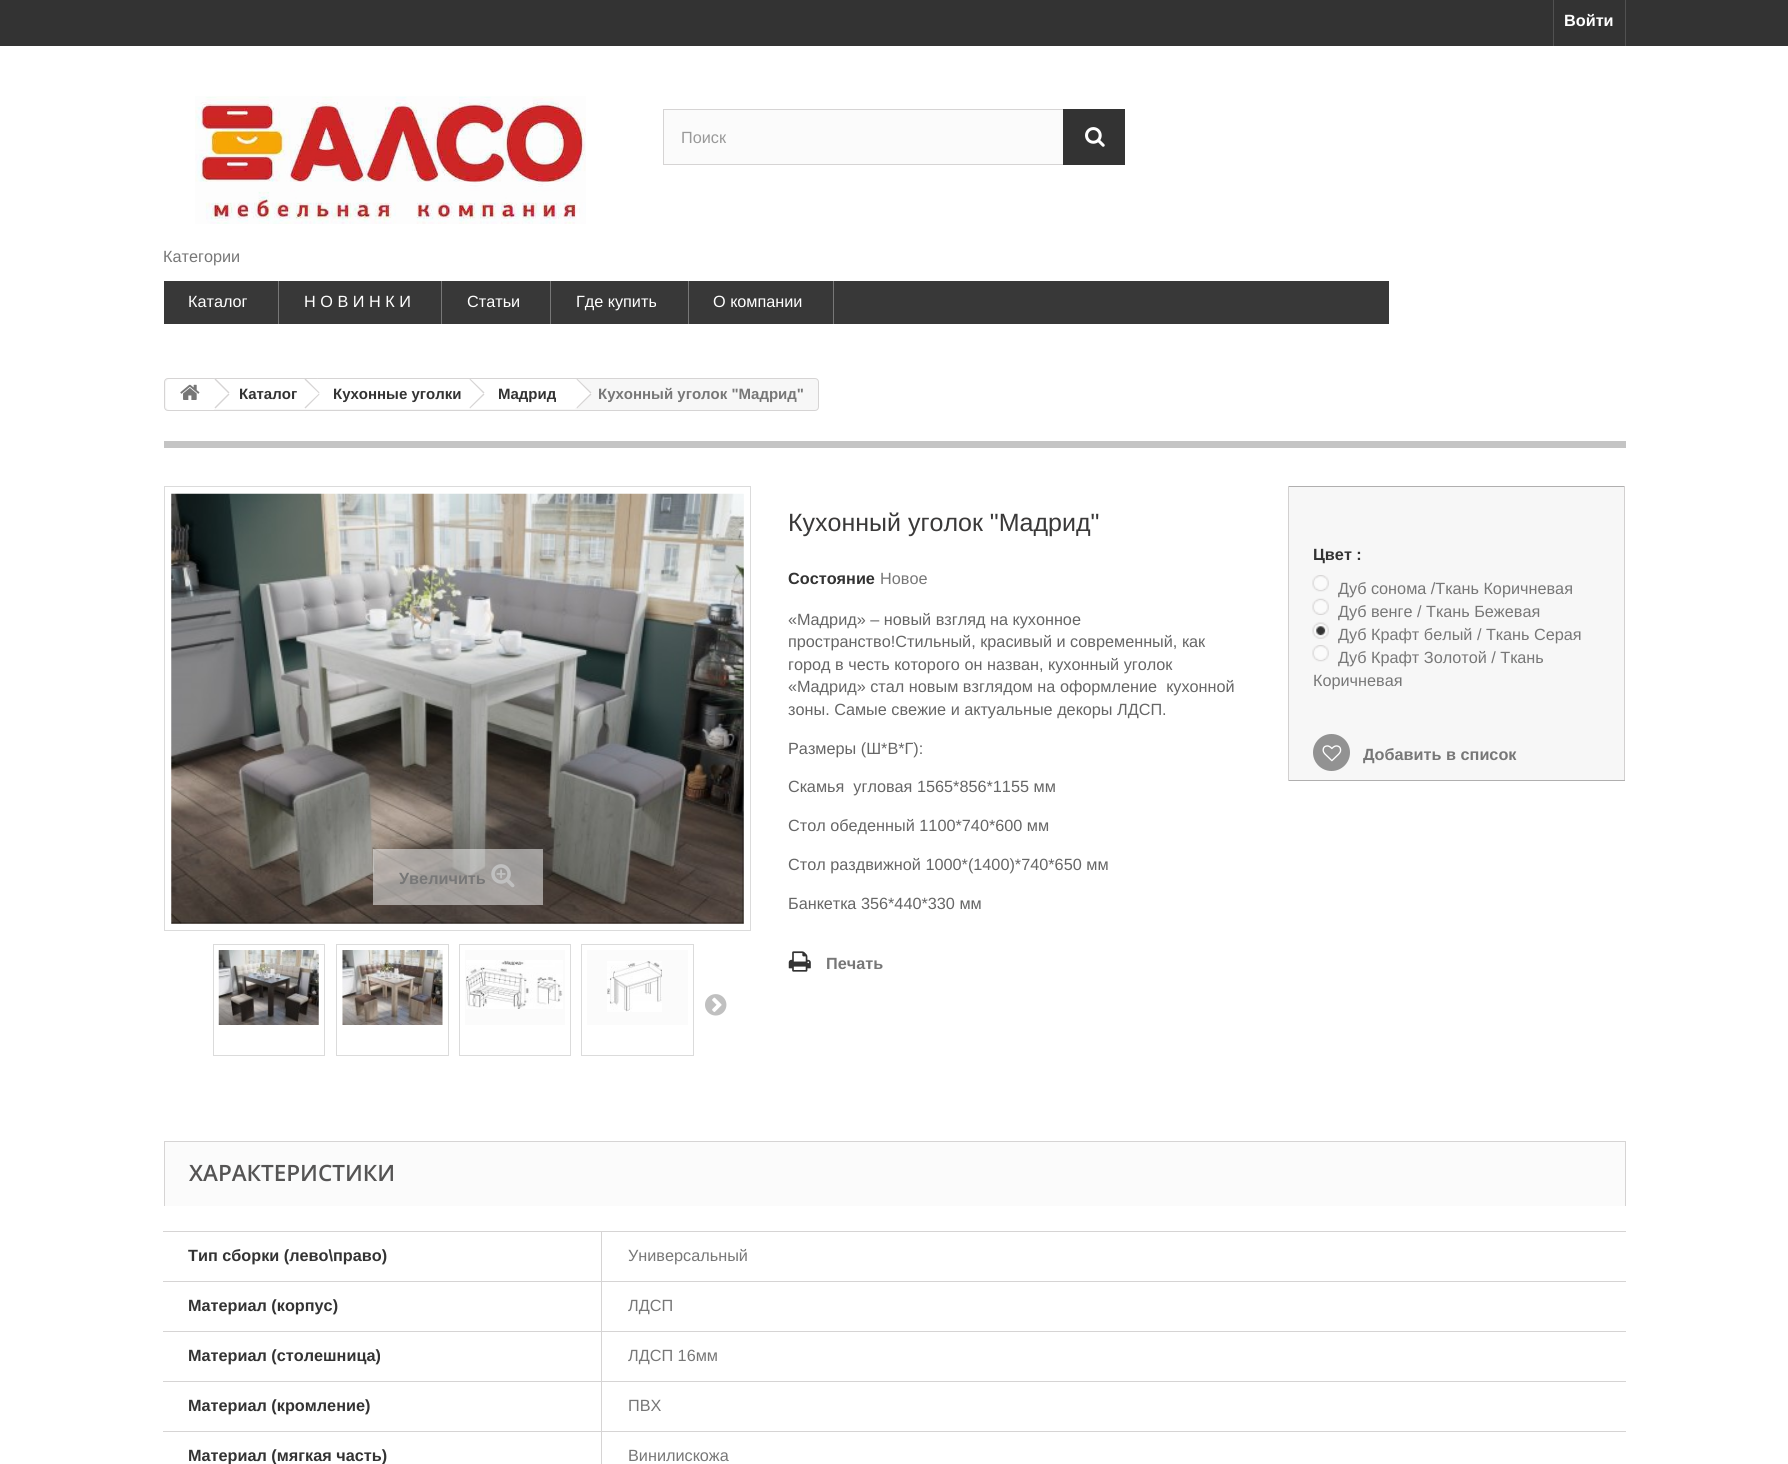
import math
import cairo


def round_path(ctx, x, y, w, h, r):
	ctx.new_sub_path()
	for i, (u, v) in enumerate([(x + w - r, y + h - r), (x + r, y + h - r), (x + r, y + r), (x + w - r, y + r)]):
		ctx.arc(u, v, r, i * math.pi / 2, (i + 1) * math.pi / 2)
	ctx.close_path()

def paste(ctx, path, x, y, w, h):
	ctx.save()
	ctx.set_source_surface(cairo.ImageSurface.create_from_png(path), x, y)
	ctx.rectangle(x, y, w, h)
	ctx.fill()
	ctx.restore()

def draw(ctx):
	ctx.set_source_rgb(1, 1, 1)
	ctx.paint()
	ctx.set_source_rgb(0.2, 0.2, 0.2)
	ctx.rectangle(0, 0, 1788, 46)
	ctx.fill()
	ctx.set_source_rgb(0.318, 0.318, 0.318)
	ctx.rectangle(1625, 0, 1, 46)
	ctx.rectangle(1553, 0, 1, 46)
	ctx.fill()
	ctx.select_font_face('Liberation Sans', cairo.FONT_SLANT_NORMAL, cairo.FONT_WEIGHT_BOLD)
	ctx.set_font_size(16.25)
	ctx.set_source_rgb(1, 1, 1)
	ctx.move_to(1564, 26)
	ctx.show_text('Войти')
	paste(ctx, 'media/1.png', 195, 96, 391, 128)
	ctx.set_source_rgb(0.984, 0.984, 0.984)
	ctx.rectangle(664, 110, 399, 54)
	ctx.fill()
	ctx.rectangle(663.5, 109.5, 461, 55)
	ctx.set_source_rgb(0.839, 0.831, 0.831)
	ctx.set_line_width(1)
	ctx.stroke()
	ctx.select_font_face('Liberation Sans')
	ctx.set_source_rgb(0.6, 0.6, 0.6)
	ctx.move_to(681, 143)
	ctx.show_text('Поиск')
	ctx.set_source_rgb(0.2, 0.2, 0.2)
	ctx.rectangle(1063, 109, 62, 56)
	ctx.fill()
	paste(ctx, 'media/2.png', 1085, 127, 20, 20)
	ctx.set_source_rgb(0.467, 0.467, 0.467)
	ctx.move_to(163, 262)
	ctx.show_text('Категории')
	ctx.set_source_rgb(0.22, 0.22, 0.22)
	ctx.rectangle(164, 281, 1225, 43)
	ctx.fill()
	ctx.set_source_rgb(0.467, 0.467, 0.467)
	ctx.rectangle(278, 281, 1, 43)
	ctx.fill()
	ctx.set_source_rgb(1, 1, 1)
	ctx.move_to(188, 307)
	ctx.show_text('Каталог')
	ctx.set_source_rgb(0.467, 0.467, 0.467)
	ctx.rectangle(441, 281, 1, 43)
	ctx.fill()
	ctx.set_source_rgb(1, 1, 1)
	ctx.move_to(304, 307)
	ctx.show_text('Н О В И Н К И')
	ctx.set_source_rgb(0.467, 0.467, 0.467)
	ctx.rectangle(550, 281, 1, 43)
	ctx.fill()
	ctx.set_source_rgb(1, 1, 1)
	ctx.move_to(467, 307)
	ctx.show_text('Статьи')
	ctx.set_source_rgb(0.467, 0.467, 0.467)
	ctx.rectangle(688, 281, 1, 43)
	ctx.fill()
	ctx.set_source_rgb(1, 1, 1)
	ctx.move_to(576, 307)
	ctx.show_text('Где купить')
	ctx.set_source_rgb(0.467, 0.467, 0.467)
	ctx.rectangle(833, 281, 1, 43)
	ctx.fill()
	ctx.set_source_rgb(1, 1, 1)
	ctx.move_to(713, 307)
	ctx.show_text('О компании')
	ctx.set_source_rgb(0.965, 0.965, 0.965)
	round_path(ctx, 164.5, 378.5, 654, 32, 3.5)
	ctx.fill_preserve()
	ctx.set_source_rgb(0.839, 0.831, 0.831)
	ctx.stroke()
	ctx.set_source_rgb(1, 1, 1)
	ctx.new_path()
	ctx.move_to(170, 379)
	ctx.line_to(214, 379)
	ctx.line_to(214, 410)
	ctx.line_to(170, 410)
	ctx.curve_to(168, 410, 166, 408, 166, 406)
	ctx.line_to(166, 383)
	ctx.curve_to(166, 381, 168, 379, 170, 379)
	ctx.close_path()
	ctx.fill()
	ctx.rectangle(214, 379, 92, 30)
	ctx.fill()
	ctx.new_path()
	ctx.move_to(216, 379.5)
	ctx.curve_to(213.5, 377, 209.5, 382.5, 208.5, 383.5)
	ctx.line_to(200, 391.5)
	ctx.curve_to(199.5, 392, 199.5, 395, 200, 395.5)
	ctx.line_to(210.5, 405.5)
	ctx.curve_to(214, 409, 214.5, 409, 218, 405.5)
	ctx.line_to(224.5, 399.5)
	ctx.curve_to(226, 398, 231.5, 394.5, 228.5, 391.5)
	ctx.close_path()
	ctx.fill()
	paste(ctx, 'media/3.png', 180, 384, 20, 16)
	ctx.set_source_rgb(0.839, 0.831, 0.831)
	ctx.new_path()
	ctx.move_to(215.5, 378.5)
	ctx.line_to(229.5, 392.5)
	ctx.line_to(228.5, 393.5)
	ctx.line_to(214.5, 379.5)
	ctx.close_path()
	ctx.fill()
	ctx.new_path()
	ctx.move_to(228.5, 393.5)
	ctx.line_to(229.5, 394.5)
	ctx.line_to(215.5, 408.5)
	ctx.line_to(214.5, 407.5)
	ctx.close_path()
	ctx.fill()
	ctx.select_font_face('Liberation Sans', cairo.FONT_SLANT_NORMAL, cairo.FONT_WEIGHT_BOLD)
	ctx.set_font_size(15)
	ctx.set_source_rgb(0.2, 0.2, 0.2)
	ctx.move_to(239, 399)
	ctx.show_text('Каталог')
	ctx.set_source_rgb(1, 1, 1)
	ctx.new_path()
	ctx.move_to(319, 379.5)
	ctx.curve_to(316.5, 377, 312.5, 382.5, 311.5, 383.5)
	ctx.line_to(305, 389.5)
	ctx.curve_to(301.5, 393, 301.5, 394, 305, 397.5)
	ctx.line_to(313.5, 405.5)
	ctx.curve_to(317, 409, 317.5, 409, 321, 405.5)
	ctx.line_to(327.5, 399.5)
	ctx.curve_to(329.5, 397.5, 333.5, 395, 331.5, 391.5)
	ctx.close_path()
	ctx.fill()
	ctx.rectangle(306, 379, 164, 30)
	ctx.fill()
	ctx.set_source_rgb(0.839, 0.831, 0.831)
	ctx.new_path()
	ctx.move_to(305.5, 378.5)
	ctx.line_to(319.5, 392.5)
	ctx.line_to(319, 393.5)
	ctx.line_to(304.5, 379.5)
	ctx.close_path()
	ctx.fill()
	ctx.new_path()
	ctx.move_to(319, 393.5)
	ctx.line_to(319.5, 394.5)
	ctx.line_to(305.5, 408.5)
	ctx.line_to(304.5, 407.5)
	ctx.close_path()
	ctx.fill()
	ctx.set_source_rgb(0.2, 0.2, 0.2)
	ctx.move_to(333, 399)
	ctx.show_text('Кухонные уголки')
	ctx.set_source_rgb(1, 1, 1)
	ctx.new_path()
	ctx.move_to(483.5, 379.5)
	ctx.curve_to(483, 379, 482.5, 379, 482, 379)
	ctx.curve_to(480, 379, 479.5, 380, 478, 381.5)
	ctx.line_to(469.5, 389.5)
	ctx.curve_to(466, 393, 466, 394, 469.5, 397.5)
	ctx.line_to(474, 401.5)
	ctx.curve_to(482, 409.5, 480, 411, 487.5, 403.5)
	ctx.line_to(492, 399.5)
	ctx.curve_to(493.5, 398, 499, 394.5, 496, 391.5)
	ctx.close_path()
	ctx.fill()
	ctx.rectangle(470, 379, 105, 30)
	ctx.fill()
	ctx.set_source_rgb(0.839, 0.831, 0.831)
	ctx.new_path()
	ctx.move_to(470, 378.5)
	ctx.line_to(484.5, 392.5)
	ctx.line_to(483.5, 393.5)
	ctx.line_to(469.5, 379.5)
	ctx.close_path()
	ctx.fill()
	ctx.new_path()
	ctx.move_to(483.5, 393.5)
	ctx.line_to(484.5, 394.5)
	ctx.line_to(470, 408.5)
	ctx.line_to(469.5, 407.5)
	ctx.close_path()
	ctx.fill()
	ctx.set_source_rgb(0.2, 0.2, 0.2)
	ctx.move_to(498, 399)
	ctx.show_text('Мадрид')
	ctx.set_source_rgb(1, 1, 1)
	ctx.new_path()
	ctx.move_to(578, 379.5)
	ctx.curve_to(577.5, 379, 577, 379, 576, 379)
	ctx.curve_to(574.5, 379, 574, 380, 572.5, 381.5)
	ctx.line_to(564, 389.5)
	ctx.curve_to(560.5, 393, 560.5, 394, 564, 397.5)
	ctx.line_to(568, 401.5)
	ctx.curve_to(576.5, 409.5, 574.5, 411, 582, 403.5)
	ctx.line_to(586.5, 399.5)
	ctx.curve_to(588, 398, 593.5, 394.5, 590.5, 391.5)
	ctx.close_path()
	ctx.fill()
	ctx.set_source_rgb(0.839, 0.831, 0.831)
	ctx.new_path()
	ctx.move_to(577, 378.5)
	ctx.line_to(591.5, 392.5)
	ctx.line_to(590.5, 393.5)
	ctx.line_to(576.5, 379.5)
	ctx.close_path()
	ctx.fill()
	ctx.new_path()
	ctx.move_to(590.5, 393.5)
	ctx.line_to(591.5, 394.5)
	ctx.line_to(577, 408.5)
	ctx.line_to(576.5, 407.5)
	ctx.close_path()
	ctx.fill()
	ctx.set_source_rgb(0.467, 0.467, 0.467)
	ctx.move_to(598, 399)
	ctx.show_text('Кухонный уголок "Мадрид"')
	ctx.set_source_rgb(0.769, 0.769, 0.769)
	ctx.rectangle(164, 441, 1462, 7)
	ctx.fill()
	ctx.select_font_face('Liberation Sans')
	ctx.set_font_size(25)
	ctx.set_source_rgb(0.227, 0.224, 0.224)
	ctx.move_to(788, 531)
	ctx.show_text('Кухонный уголок "Мадрид"')
	ctx.select_font_face('Liberation Sans', cairo.FONT_SLANT_NORMAL, cairo.FONT_WEIGHT_BOLD)
	ctx.set_font_size(16.25)
	ctx.set_source_rgb(0.2, 0.2, 0.2)
	ctx.move_to(788, 584)
	ctx.show_text('Состояние')
	ctx.select_font_face('Liberation Sans')
	ctx.set_source_rgb(0.467, 0.467, 0.467)
	ctx.move_to(880, 584)
	ctx.show_text('Новое')
	ctx.set_source_rgb(0.4, 0.4, 0.4)
	for x, y, s in [
		(788, 625, '«Мадрид» – новый взгляд на кухонное'),
		(788, 647, 'пространство!Cтильный, красивый и современный, как'),
		(788, 670, 'город в честь которого он назван, кухонный уголок'),
		(788, 692, '«Мадрид» стал новым взглядом на оформление  кухонной'),
		(788, 715, 'зоны. Самые свежие и актуальные декоры ЛДСП.'),
		(788, 754, 'Размеры (Ш*В*Г):'),
		(788, 792, 'Скамья  угловая 1565*856*1155 мм'),
		(788, 831, 'Стол обеденный 1100*740*600 мм'),
		(788, 870, 'Стол раздвижной 1000*(1400)*740*650 мм'),
		(788, 909, 'Банкетка 356*440*330 мм'),
	]:
		ctx.move_to(x, y)
		ctx.show_text(s)
	paste(ctx, 'media/4.png', 788, 951, 23, 21)
	ctx.select_font_face('Liberation Sans', cairo.FONT_SLANT_NORMAL, cairo.FONT_WEIGHT_BOLD)
	ctx.set_source_rgb(0.467, 0.467, 0.467)
	ctx.move_to(826, 969)
	ctx.show_text('Печать')
	ctx.set_source_rgb(0.965, 0.965, 0.965)
	ctx.rectangle(1289, 487, 335, 293)
	ctx.fill()
	ctx.set_source_rgb(0.69, 0.686, 0.686)
	ctx.rectangle(1288, 486, 337, 1)
	ctx.fill()
	ctx.set_source_rgb(0.824, 0.816, 0.816)
	ctx.rectangle(1624, 486, 1, 295)
	ctx.fill()
	ctx.set_source_rgb(0.69, 0.686, 0.686)
	ctx.rectangle(1288, 780, 337, 1)
	ctx.fill()
	ctx.set_source_rgb(0.824, 0.816, 0.816)
	ctx.rectangle(1288, 486, 1, 295)
	ctx.fill()
	ctx.set_source_rgb(0.2, 0.2, 0.2)
	ctx.move_to(1313, 560)
	ctx.show_text('Цвет :')
	paste(ctx, 'media/5.png', 1312, 575, 17, 17)
	ctx.select_font_face('Liberation Sans')
	ctx.set_source_rgb(0.467, 0.467, 0.467)
	ctx.move_to(1338, 594)
	ctx.show_text('Дуб сонома /Ткань Коричневая')
	paste(ctx, 'media/6.png', 1312, 598, 17, 17)
	ctx.move_to(1338, 617)
	ctx.show_text('Дуб венге / Ткань Бежевая')
	paste(ctx, 'media/7.png', 1312, 622, 17, 17)
	ctx.move_to(1338, 640)
	ctx.show_text('Дуб Крафт белый / Ткань Серая')
	paste(ctx, 'media/5.png', 1312, 645, 17, 17)
	ctx.move_to(1338, 663)
	ctx.show_text('Дуб Крафт Золотой / Ткань')
	ctx.move_to(1313, 686)
	ctx.show_text('Коричневая')
	ctx.set_source_rgb(0.573, 0.573, 0.573)
	ctx.new_path()
	ctx.arc(1331.5, 752.5, 18.5, 0, 2 * math.pi)
	ctx.fill()
	paste(ctx, 'media/8.png', 1322, 745, 20, 17)
	ctx.select_font_face('Liberation Sans', cairo.FONT_SLANT_NORMAL, cairo.FONT_WEIGHT_BOLD)
	ctx.set_source_rgb(0.467, 0.467, 0.467)
	ctx.move_to(1363, 760)
	ctx.show_text('Добавить в список')
	ctx.rectangle(164.5, 486.5, 586, 444)
	ctx.set_source_rgb(0.859, 0.859, 0.859)
	ctx.stroke()
	ctx.set_source_rgb(0.984, 0.984, 0.984)
	ctx.rectangle(171, 494, 573, 430)
	ctx.fill()
	paste(ctx, 'media/9.png', 171, 493, 573, 431)
	ctx.set_source_rgba(1, 1, 1, 0.5)
	ctx.rectangle(373, 849, 170, 56)
	ctx.fill()
	ctx.set_source_rgb(0.467, 0.467, 0.467)
	ctx.move_to(399, 884)
	ctx.show_text('Увеличить')
	paste(ctx, 'media/10.png', 491, 864, 24, 24)
	ctx.rectangle(213.5, 944.5, 111, 111)
	ctx.set_source_rgb(0.859, 0.859, 0.859)
	ctx.stroke()
	paste(ctx, 'media/11.png', 218, 950, 101, 75)
	ctx.rectangle(336.5, 944.5, 112, 111)
	ctx.stroke()
	ctx.set_source_rgb(0.984, 0.984, 0.984)
	ctx.rectangle(342, 950, 101, 75)
	ctx.fill()
	paste(ctx, 'media/12.png', 342, 950, 101, 75)
	ctx.rectangle(459.5, 944.5, 111, 111)
	ctx.set_source_rgb(0.859, 0.859, 0.859)
	ctx.stroke()
	ctx.set_source_rgb(0.984, 0.984, 0.984)
	ctx.rectangle(465, 950, 100, 75)
	ctx.fill()
	paste(ctx, 'media/13.png', 466, 960, 97, 49)
	ctx.rectangle(581.5, 944.5, 112, 111)
	ctx.set_source_rgb(0.859, 0.859, 0.859)
	ctx.stroke()
	ctx.set_source_rgb(0.984, 0.984, 0.984)
	ctx.rectangle(587, 950, 101, 75)
	ctx.fill()
	paste(ctx, 'media/14.png', 607, 961, 55, 51)
	paste(ctx, 'media/15.png', 705, 994, 22, 22)
	ctx.rectangle(165, 1142, 1460, 64)
	ctx.fill()
	ctx.set_source_rgb(0.839, 0.831, 0.831)
	ctx.rectangle(164, 1141, 1462, 1)
	ctx.rectangle(1625, 1141, 1, 65)
	ctx.rectangle(164, 1141, 1, 65)
	ctx.fill()
	ctx.select_font_face('Open Sans SemiBold')
	ctx.set_font_size(22.5)
	ctx.set_source_rgb(0.333, 0.329, 0.329)
	ctx.move_to(189, 1181)
	ctx.show_text('ХАРАКТЕРИСТИКИ')
	ctx.set_source_rgb(0.839, 0.831, 0.831)
	ctx.rectangle(163, 1231, 1463, 1)
	ctx.fill()
	ctx.select_font_face('Liberation Sans', cairo.FONT_SLANT_NORMAL, cairo.FONT_WEIGHT_BOLD)
	ctx.set_font_size(16.25)
	ctx.set_source_rgb(0.2, 0.2, 0.2)
	ctx.move_to(188, 1261)
	ctx.show_text('Тип сборки (лево\\право)')
	ctx.select_font_face('Liberation Sans')
	ctx.set_source_rgb(0.467, 0.467, 0.467)
	ctx.move_to(628, 1261)
	ctx.show_text('Универсальный')
	ctx.set_source_rgb(0.839, 0.831, 0.831)
	ctx.rectangle(163, 1281, 1463, 1)
	ctx.fill()
	ctx.select_font_face('Liberation Sans', cairo.FONT_SLANT_NORMAL, cairo.FONT_WEIGHT_BOLD)
	ctx.set_source_rgb(0.2, 0.2, 0.2)
	ctx.move_to(188, 1311)
	ctx.show_text('Материал (корпус)')
	ctx.select_font_face('Liberation Sans')
	ctx.set_source_rgb(0.467, 0.467, 0.467)
	ctx.move_to(628, 1311)
	ctx.show_text('ЛДСП')
	ctx.set_source_rgb(0.839, 0.831, 0.831)
	ctx.rectangle(163, 1331, 1463, 1)
	ctx.fill()
	ctx.select_font_face('Liberation Sans', cairo.FONT_SLANT_NORMAL, cairo.FONT_WEIGHT_BOLD)
	ctx.set_source_rgb(0.2, 0.2, 0.2)
	ctx.move_to(188, 1361)
	ctx.show_text('Материал (столешница)')
	ctx.select_font_face('Liberation Sans')
	ctx.set_source_rgb(0.467, 0.467, 0.467)
	ctx.move_to(628, 1361)
	ctx.show_text('ЛДСП 16мм')
	ctx.set_source_rgb(0.839, 0.831, 0.831)
	ctx.rectangle(163, 1381, 1463, 1)
	ctx.fill()
	ctx.select_font_face('Liberation Sans', cairo.FONT_SLANT_NORMAL, cairo.FONT_WEIGHT_BOLD)
	ctx.set_source_rgb(0.2, 0.2, 0.2)
	ctx.move_to(188, 1411)
	ctx.show_text('Материал (кромление)')
	ctx.select_font_face('Liberation Sans')
	ctx.set_source_rgb(0.467, 0.467, 0.467)
	ctx.move_to(628, 1411)
	ctx.show_text('ПВХ')
	ctx.set_source_rgb(0.839, 0.831, 0.831)
	ctx.rectangle(163, 1431, 1463, 1)
	ctx.fill()
	ctx.rectangle(601, 1231, 1, 233)
	ctx.fill()
	ctx.select_font_face('Liberation Sans', cairo.FONT_SLANT_NORMAL, cairo.FONT_WEIGHT_BOLD)
	ctx.set_source_rgb(0.2, 0.2, 0.2)
	ctx.move_to(188, 1461)
	ctx.show_text('Материал (мягкая часть)')
	ctx.select_font_face('Liberation Sans')
	ctx.set_source_rgb(0.467, 0.467, 0.467)
	ctx.move_to(628, 1461)
	ctx.show_text('Винилискожа')


surface = cairo.ImageSurface(cairo.FORMAT_RGB24, 1788, 1464)
ctx = cairo.Context(surface)
options = cairo.FontOptions()
options.set_hint_metrics(cairo.HINT_METRICS_OFF)
options.set_hint_style(cairo.HINT_STYLE_NONE)
ctx.set_font_options(options)
ctx.set_miter_limit(4)
draw(ctx)
surface.write_to_png('image.png')
